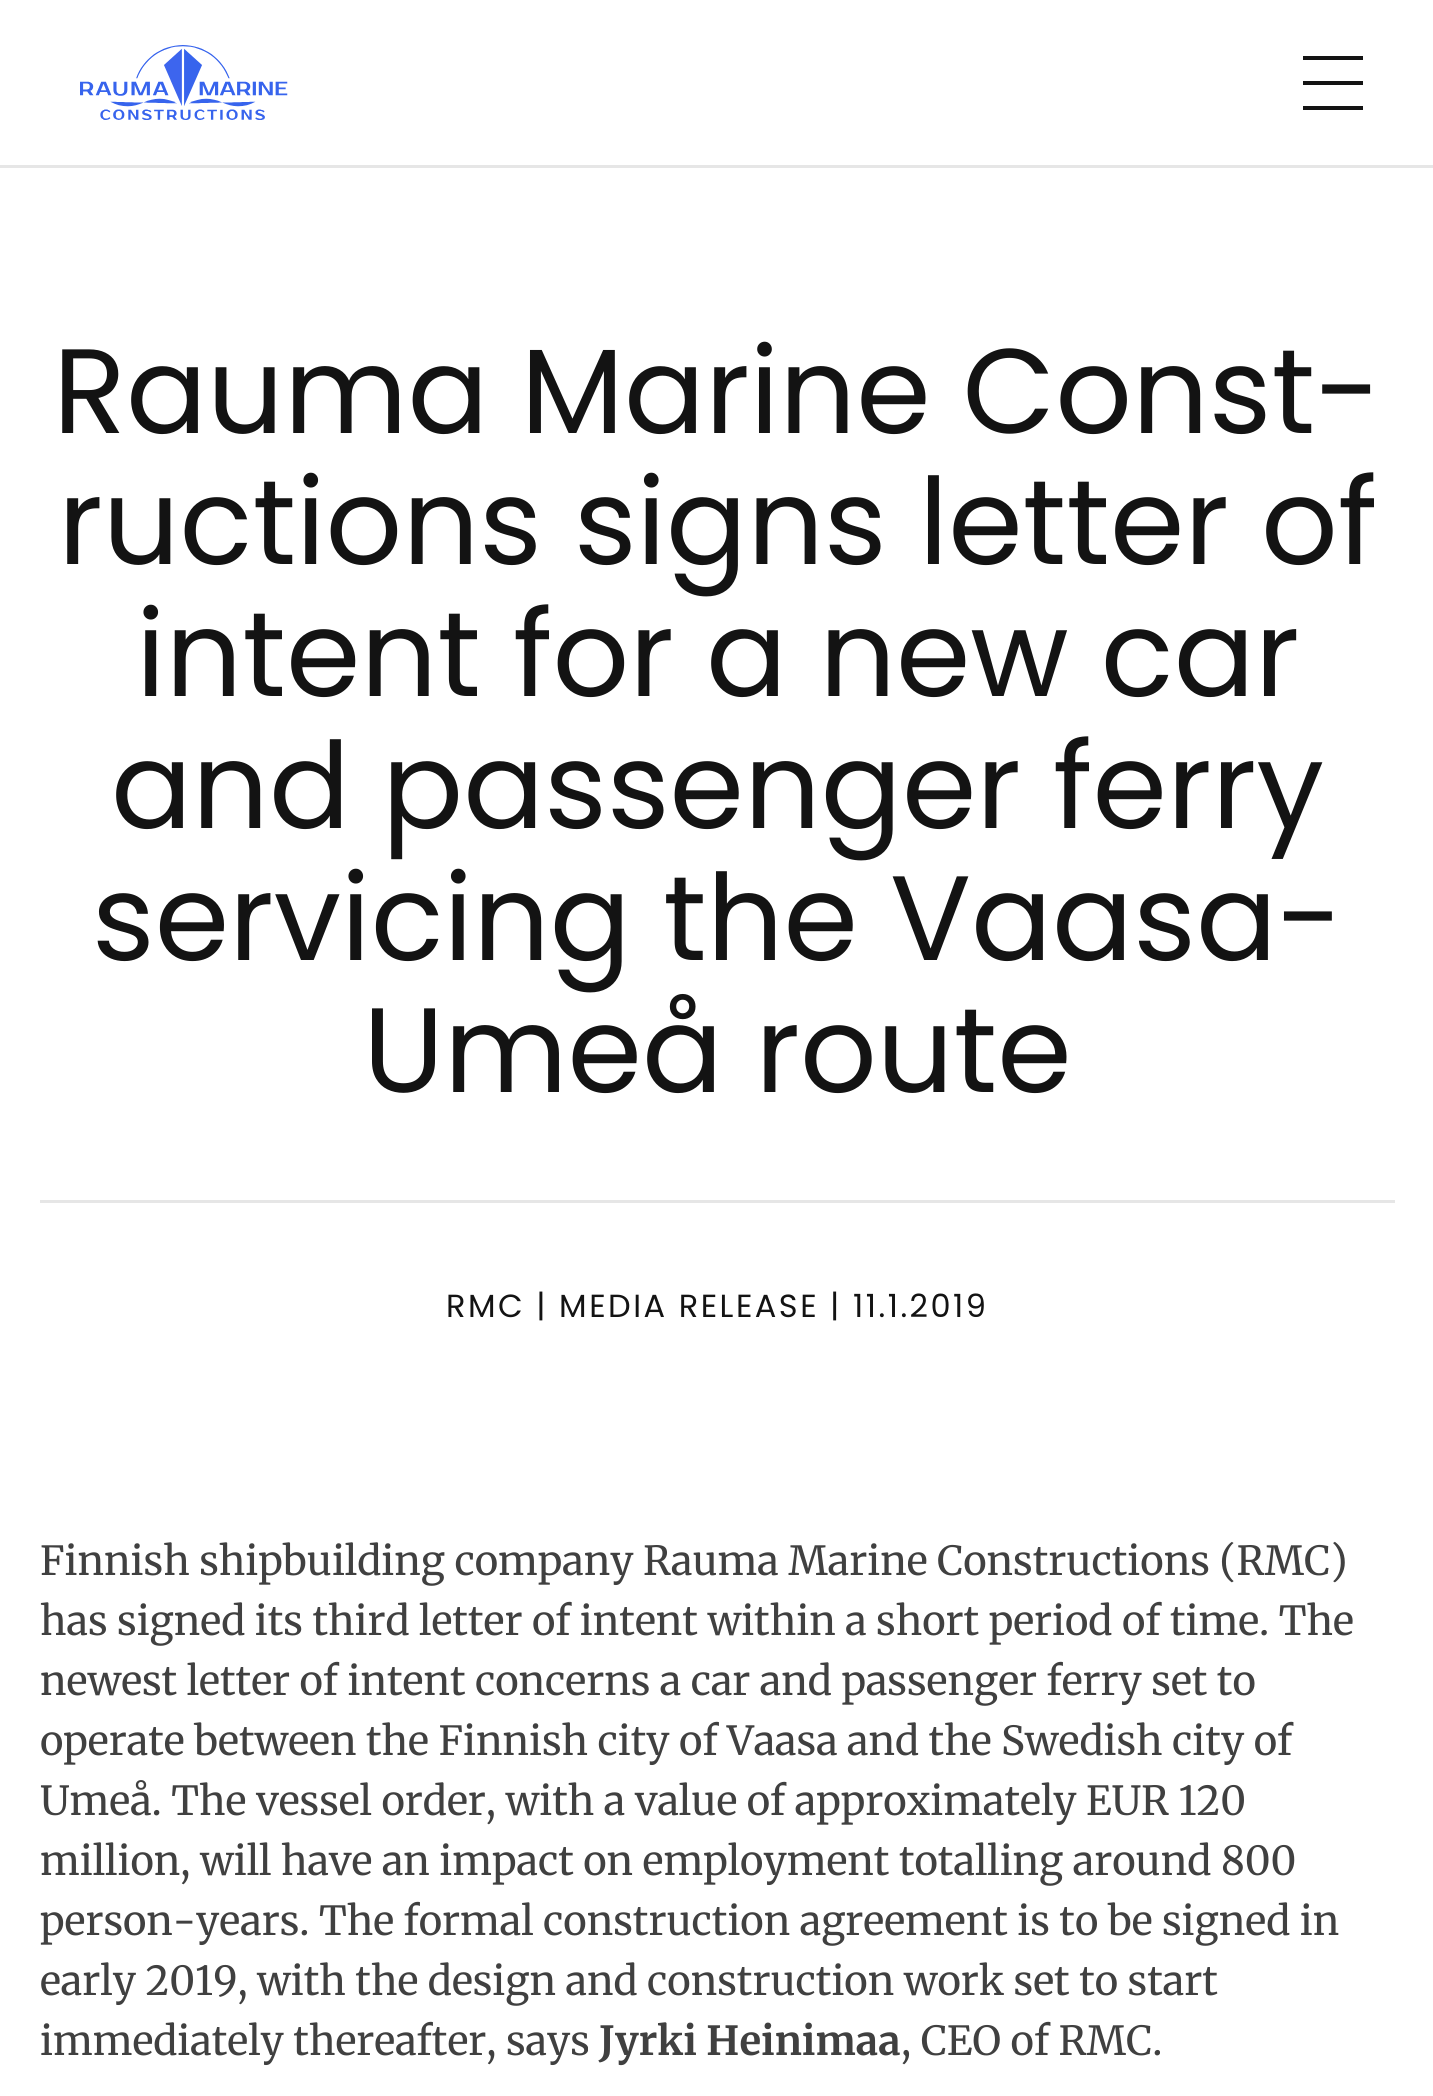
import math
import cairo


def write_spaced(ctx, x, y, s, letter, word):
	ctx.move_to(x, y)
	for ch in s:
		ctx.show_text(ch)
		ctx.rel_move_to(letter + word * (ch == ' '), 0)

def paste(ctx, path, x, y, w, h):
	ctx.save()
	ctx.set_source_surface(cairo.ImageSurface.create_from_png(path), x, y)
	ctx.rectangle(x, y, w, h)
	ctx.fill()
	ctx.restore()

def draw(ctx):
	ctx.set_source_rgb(1, 1, 1)
	ctx.paint()
	ctx.set_source_rgb(0.902, 0.902, 0.902)
	ctx.rectangle(0, 165, 1433, 3)
	ctx.fill()
	paste(ctx, 'media/1.png', 80, 45, 208, 75)
	ctx.set_source_rgb(0.078, 0.078, 0.078)
	ctx.rectangle(1303, 56, 60, 4)
	ctx.rectangle(1303, 81, 60, 4)
	ctx.rectangle(1303, 106, 60, 4)
	ctx.fill()
	ctx.select_font_face('Poppins')
	ctx.set_font_size(120)
	for x, y, s in [
		(53, 433, 'Rauma Marine Const-'),
		(58, 564, 'ructions signs letter of'),
		(136, 696, 'intent for a new car'),
		(111, 828, 'and passenger ferry'),
		(92, 960, 'servicing the Vaasa-'),
		(363, 1092, 'Umeå route'),
	]:
		ctx.move_to(x, y)
		ctx.show_text(s)
	ctx.set_source_rgb(0.902, 0.902, 0.902)
	ctx.rectangle(40, 1200, 1355, 3)
	ctx.fill()
	ctx.set_font_size(32)
	ctx.set_source_rgb(0.078, 0.078, 0.078)
	write_spaced(ctx, 446, 1317, 'RMC | MEDIA RELEASE | 11.1.2019', 2.5, 0)
	ctx.select_font_face('Merriweather Light')
	ctx.set_font_size(40)
	ctx.set_source_rgb(0.251, 0.251, 0.251)
	for x, y, s in [
		(40, 1575, 'Finnish shipbuilding company Rauma Marine Constructions (RMC)'),
		(40, 1635, 'has signed its third letter of intent within a short period of time. The'),
		(40, 1695, 'newest letter of intent concerns a car and passenger ferry set to'),
		(40, 1755, 'operate between the Finnish city of Vaasa and the Swedish city of'),
		(40, 1815, 'Umeå. The vessel order, with a value of approximately EUR 120'),
		(40, 1875, 'million, will have an impact on employment totalling around 800'),
		(40, 1935, 'person-years. The formal construction agreement is to be signed in'),
		(40, 1995, 'early 2019, with the design and construction work set to start'),
		(40, 2055, 'immediately thereafter, says'),
	]:
		ctx.move_to(x, y)
		ctx.show_text(s)
	ctx.select_font_face('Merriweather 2 Light')
	ctx.move_to(599, 2055)
	ctx.show_text('Jyrki Heinimaa')
	ctx.select_font_face('Merriweather Light')
	ctx.move_to(901, 2055)
	ctx.show_text(', CEO of RMC.')


surface = cairo.ImageSurface(cairo.FORMAT_RGB24, 1433, 2096)
ctx = cairo.Context(surface)
options = cairo.FontOptions()
options.set_hint_metrics(cairo.HINT_METRICS_OFF)
options.set_hint_style(cairo.HINT_STYLE_NONE)
ctx.set_font_options(options)
ctx.set_miter_limit(4)
draw(ctx)
surface.write_to_png('image.png')
